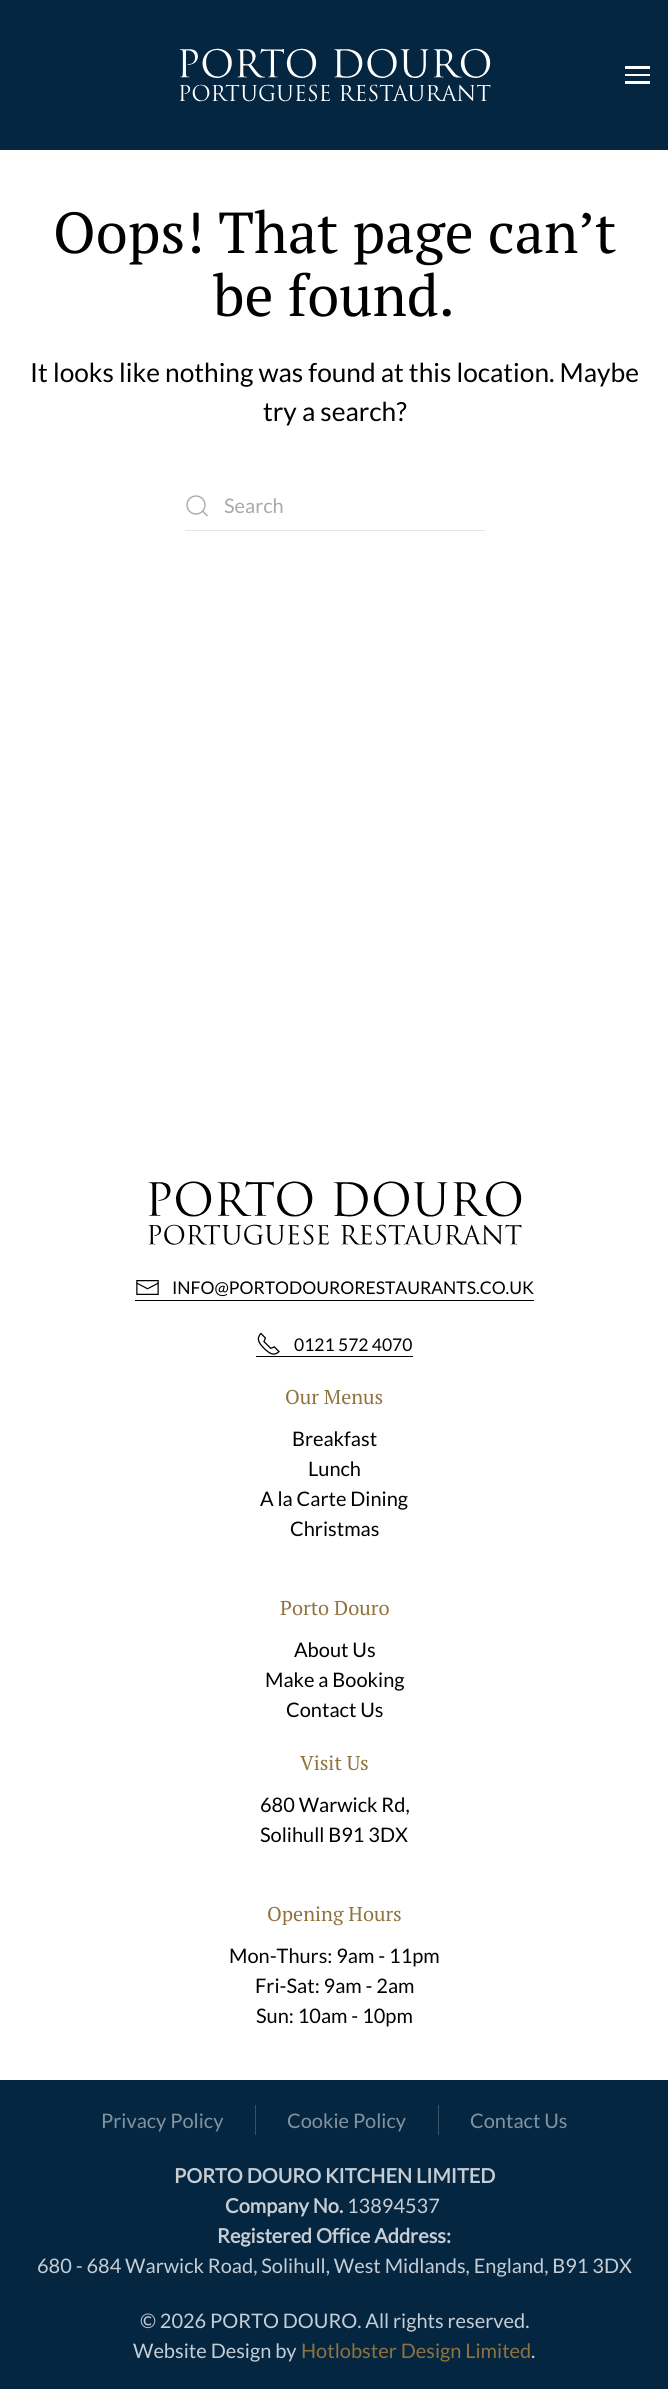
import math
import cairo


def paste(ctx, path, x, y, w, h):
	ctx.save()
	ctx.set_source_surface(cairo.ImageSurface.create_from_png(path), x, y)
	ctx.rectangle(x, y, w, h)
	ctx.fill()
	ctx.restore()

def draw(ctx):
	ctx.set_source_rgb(1, 1, 1)
	ctx.paint()
	ctx.set_source_rgb(0.02, 0.149, 0.255)
	ctx.rectangle(0, 0, 668, 150)
	ctx.fill()
	paste(ctx, 'media/1.png', 179, 48, 312, 54)
	ctx.set_source_rgb(1, 1, 1)
	ctx.rectangle(625, 66, 25, 3)
	ctx.rectangle(625, 74, 25, 2)
	ctx.rectangle(625, 81, 25, 3)
	ctx.fill()
	ctx.select_font_face('PT Serif')
	ctx.set_font_size(57.75)
	ctx.set_source_rgb(0, 0, 0)
	ctx.move_to(53, 253)
	ctx.show_text('Oops! That page can’t')
	ctx.move_to(213, 316)
	ctx.show_text('be found.')
	ctx.select_font_face('Lato')
	ctx.set_font_size(26.25)
	ctx.move_to(30, 382)
	ctx.show_text('It looks like nothing was found at this location. Maybe')
	ctx.move_to(263, 421)
	ctx.show_text('try a search?')
	ctx.new_path()
	ctx.arc(196, 505, 9, 0, 2 * math.pi)
	ctx.set_source_rgb(0.667, 0.667, 0.667)
	ctx.set_line_width(1.4)
	ctx.stroke()
	ctx.new_path()
	ctx.move_to(202.5, 511)
	ctx.line_to(207.5, 516)
	ctx.close_path()
	ctx.stroke()
	ctx.set_source_rgb(0.898, 0.898, 0.898)
	ctx.rectangle(185, 530, 300, 1)
	ctx.fill()
	ctx.set_font_size(20)
	ctx.set_source_rgb(0.667, 0.667, 0.667)
	ctx.move_to(224, 513)
	ctx.show_text('Search')
	paste(ctx, 'media/2.png', 148, 1181, 374, 64)
	ctx.set_source_rgb(0, 0, 0)
	ctx.rectangle(135, 1300, 399, 1)
	ctx.fill()
	paste(ctx, 'media/3.png', 136, 1280, 23, 15)
	ctx.set_font_size(17.5)
	ctx.move_to(172, 1294)
	ctx.show_text('INFO@PORTODOURORESTAURANTS.CO.UK')
	ctx.rectangle(256, 1356, 157, 1)
	ctx.fill()
	paste(ctx, 'media/4.png', 257, 1332, 23, 23)
	ctx.move_to(294, 1351)
	ctx.show_text('0121 572 4070')
	ctx.select_font_face('PT Serif')
	ctx.set_font_size(20)
	ctx.set_source_rgb(0.565, 0.447, 0.243)
	ctx.move_to(285, 1404)
	ctx.show_text('Our Menus')
	ctx.select_font_face('Lato')
	ctx.set_source_rgb(0, 0, 0)
	for x, y, s in [
		(292, 1446, 'Breakfast'),
		(308, 1476, 'Lunch'),
		(260, 1506, 'A la Carte Dining'),
		(290, 1536, 'Christmas'),
	]:
		ctx.move_to(x, y)
		ctx.show_text(s)
	ctx.select_font_face('PT Serif')
	ctx.set_source_rgb(0.565, 0.447, 0.243)
	ctx.move_to(280, 1615)
	ctx.show_text('Porto Douro')
	ctx.select_font_face('Lato')
	ctx.set_source_rgb(0, 0, 0)
	for x, y, s in [
		(294, 1657, 'About Us'),
		(265, 1687, 'Make a Booking'),
		(286, 1717, 'Contact Us'),
	]:
		ctx.move_to(x, y)
		ctx.show_text(s)
	ctx.select_font_face('PT Serif')
	ctx.set_source_rgb(0.565, 0.447, 0.243)
	ctx.move_to(300, 1770)
	ctx.show_text('Visit Us')
	ctx.select_font_face('Lato')
	ctx.set_source_rgb(0, 0, 0)
	ctx.move_to(260, 1812)
	ctx.show_text('680 Warwick Rd,')
	ctx.move_to(260, 1842)
	ctx.show_text('Solihull B91 3DX')
	ctx.select_font_face('PT Serif')
	ctx.set_source_rgb(0.565, 0.447, 0.243)
	ctx.move_to(267, 1921)
	ctx.show_text('Opening Hours')
	ctx.select_font_face('Lato')
	ctx.set_source_rgb(0, 0, 0)
	for x, y, s in [
		(229, 1963, 'Mon-Thurs: 9am - 11pm'),
		(255, 1993, 'Fri-Sat: 9am - 2am'),
		(256, 2023, 'Sun: 10am - 10pm'),
	]:
		ctx.move_to(x, y)
		ctx.show_text(s)
	ctx.set_source_rgb(0.02, 0.149, 0.255)
	ctx.rectangle(0, 2080, 668, 309)
	ctx.fill()
	ctx.set_source_rgb(0.51, 0.576, 0.627)
	ctx.move_to(101, 2128)
	ctx.show_text('Privacy Policy')
	ctx.set_source_rgb(0.216, 0.318, 0.404)
	ctx.rectangle(255, 2105, 1, 30)
	ctx.fill()
	ctx.set_source_rgb(0.51, 0.576, 0.627)
	ctx.move_to(287, 2128)
	ctx.show_text('Cookie Policy')
	ctx.set_source_rgb(0.216, 0.318, 0.404)
	ctx.rectangle(438, 2105, 1, 30)
	ctx.fill()
	ctx.set_source_rgb(0.51, 0.576, 0.627)
	ctx.move_to(470, 2128)
	ctx.show_text('Contact Us')
	ctx.select_font_face('Lato', cairo.FONT_SLANT_NORMAL, cairo.FONT_WEIGHT_BOLD)
	ctx.set_source_rgb(0.776, 0.804, 0.827)
	ctx.move_to(174, 2183)
	ctx.show_text('PORTO DOURO KITCHEN LIMITED')
	ctx.move_to(225, 2213)
	ctx.show_text('Company No.')
	ctx.select_font_face('Lato')
	ctx.move_to(347, 2213)
	ctx.show_text('13894537')
	ctx.select_font_face('Lato', cairo.FONT_SLANT_NORMAL, cairo.FONT_WEIGHT_BOLD)
	ctx.move_to(217, 2243)
	ctx.show_text('Registered Office Address:')
	ctx.select_font_face('Lato')
	for x, y, s in [
		(37, 2273, '680 - 684 Warwick Road, Solihull, West Midlands, England, B91 3DX'),
		(140, 2328, '© 2026 PORTO DOURO. All rights reserved.'),
		(133, 2358, 'Website Design by'),
	]:
		ctx.move_to(x, y)
		ctx.show_text(s)
	ctx.set_source_rgb(0.565, 0.447, 0.243)
	ctx.move_to(301, 2358)
	ctx.show_text('Hotlobster Design Limited')
	ctx.set_source_rgb(0.776, 0.804, 0.827)
	ctx.move_to(531, 2358)
	ctx.show_text('.')


surface = cairo.ImageSurface(cairo.FORMAT_RGB24, 668, 2389)
ctx = cairo.Context(surface)
options = cairo.FontOptions()
options.set_hint_metrics(cairo.HINT_METRICS_OFF)
options.set_hint_style(cairo.HINT_STYLE_NONE)
ctx.set_font_options(options)
ctx.set_miter_limit(4)
draw(ctx)
surface.write_to_png('image.png')
